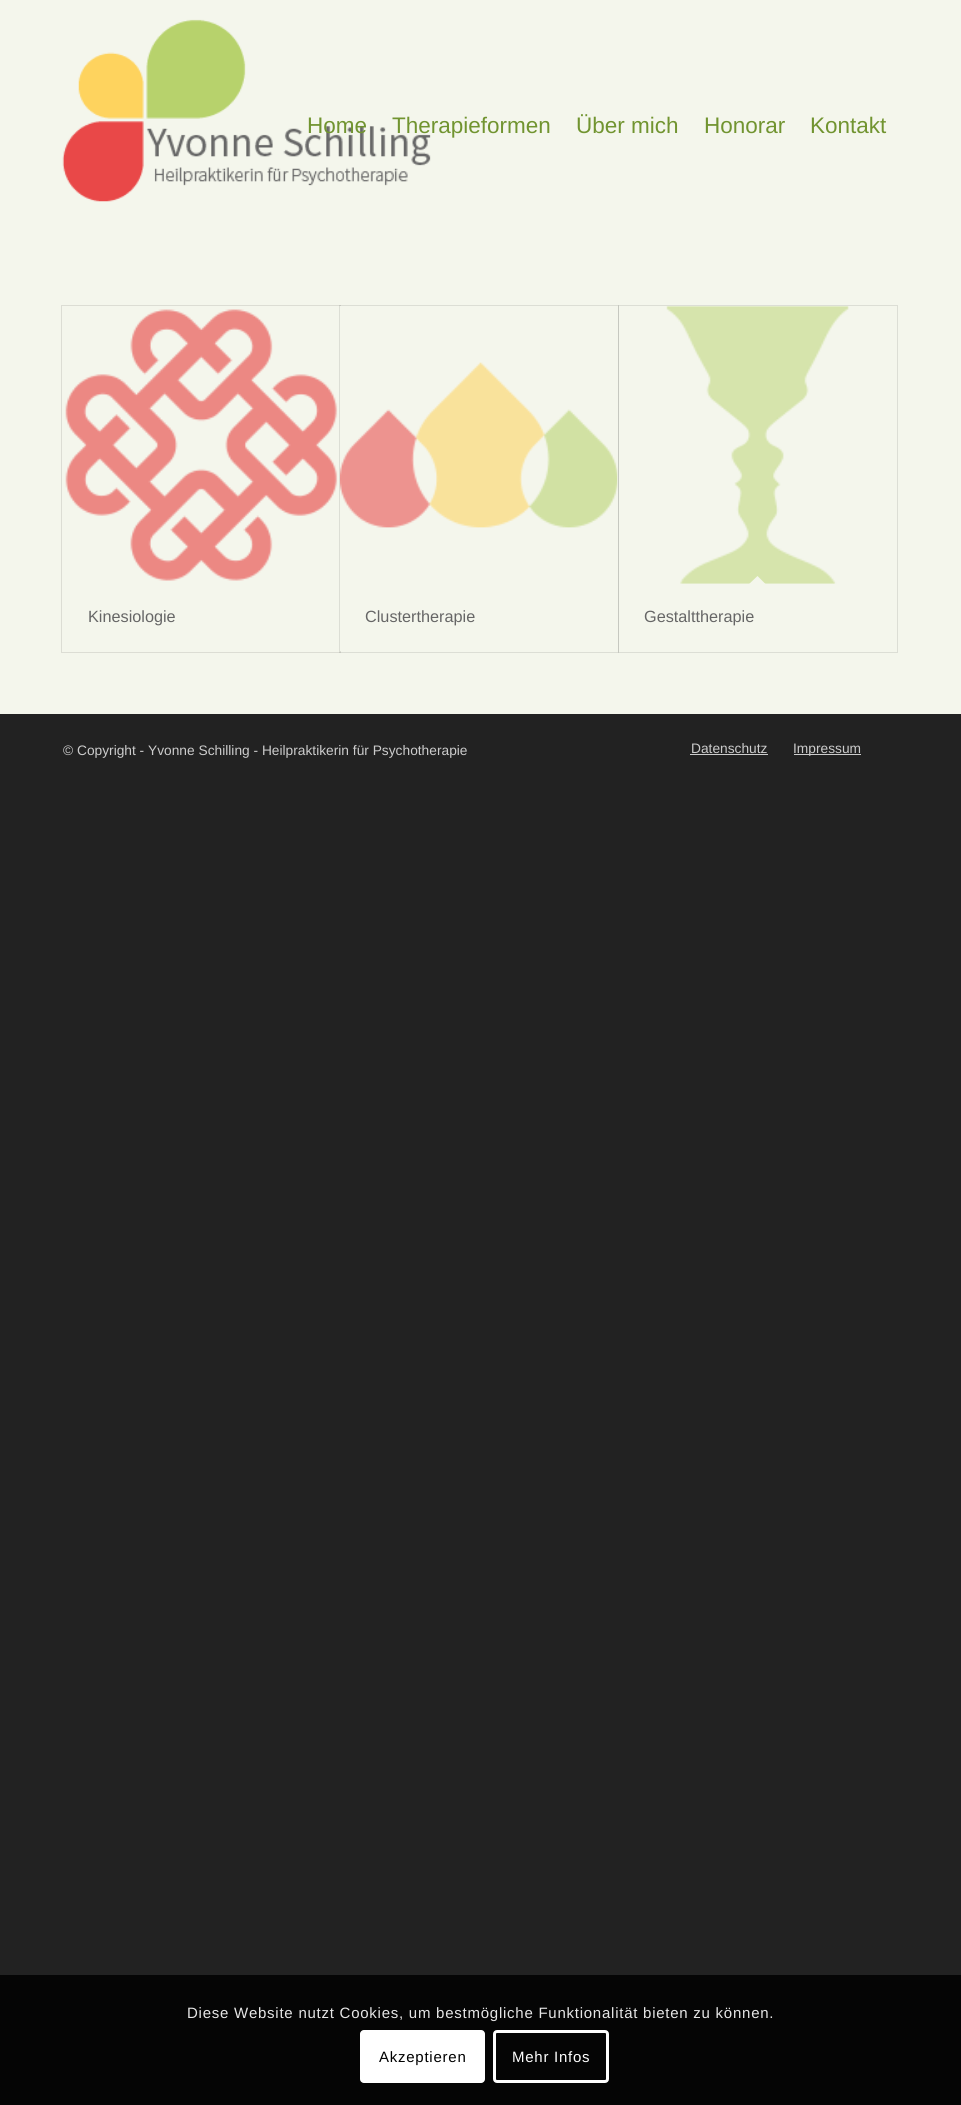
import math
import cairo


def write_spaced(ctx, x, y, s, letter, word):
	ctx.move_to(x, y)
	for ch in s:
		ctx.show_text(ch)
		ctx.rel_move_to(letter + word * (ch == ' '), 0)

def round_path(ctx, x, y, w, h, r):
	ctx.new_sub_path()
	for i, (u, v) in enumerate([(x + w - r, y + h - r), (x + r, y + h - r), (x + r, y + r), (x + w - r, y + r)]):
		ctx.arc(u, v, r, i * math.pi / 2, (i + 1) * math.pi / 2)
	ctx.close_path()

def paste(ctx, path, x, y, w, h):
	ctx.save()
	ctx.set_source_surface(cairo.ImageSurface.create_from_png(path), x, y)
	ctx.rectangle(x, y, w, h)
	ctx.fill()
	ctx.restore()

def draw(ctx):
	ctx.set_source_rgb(0.133, 0.133, 0.133)
	ctx.paint()
	ctx.set_source_rgb(0.957, 0.961, 0.922)
	ctx.rectangle(0, 0, 961, 714)
	ctx.fill()
	paste(ctx, 'media/1.png', 62, 19, 369, 183)
	ctx.select_font_face('Liberation Sans')
	ctx.set_font_size(22.5)
	ctx.set_source_rgb(0.443, 0.58, 0.188)
	for x, y, s in [
		(307, 133, 'Home'),
		(392, 133, 'Therapieformen'),
		(576, 133, 'Über mich'),
		(704, 133, 'Honorar'),
		(810, 133, 'Kontakt'),
	]:
		ctx.move_to(x, y)
		ctx.show_text(s)
	ctx.rectangle(61.5, 305.5, 279, 347)
	ctx.set_source_rgb(0.863, 0.867, 0.831)
	ctx.set_line_width(1)
	ctx.stroke()
	paste(ctx, 'media/2.png', 65, 309, 273, 272)
	ctx.set_font_size(16.25)
	ctx.set_source_rgb(0.4, 0.4, 0.4)
	ctx.move_to(88, 622)
	ctx.show_text('Kinesiologie')
	ctx.rectangle(339.5, 305.5, 279, 347)
	ctx.set_source_rgba(0, 0, 0, 0.1)
	ctx.stroke()
	ctx.set_source_rgb(0.957, 0.961, 0.922)
	ctx.rectangle(340, 306, 1, 345)
	ctx.fill()
	paste(ctx, 'media/3.png', 340, 362, 278, 166)
	ctx.set_source_rgb(0.4, 0.4, 0.4)
	ctx.move_to(365, 622)
	ctx.show_text('Clustertherapie')
	ctx.rectangle(618.5, 305.5, 279, 347)
	ctx.set_source_rgba(0, 0, 0, 0.1)
	ctx.stroke()
	paste(ctx, 'media/4.png', 666, 306, 183, 278)
	ctx.set_source_rgb(0.957, 0.961, 0.922)
	ctx.new_path()
	ctx.move_to(757.5, 576)
	ctx.line_to(766, 584.5)
	ctx.line_to(757.5, 593.5)
	ctx.line_to(748.5, 584.5)
	ctx.close_path()
	ctx.fill()
	ctx.set_source_rgb(0.4, 0.4, 0.4)
	ctx.move_to(644, 622)
	ctx.show_text('Gestalttherapie')
	ctx.set_font_size(13.75)
	ctx.set_source_rgb(0.8, 0.8, 0.8)
	ctx.move_to(63, 755)
	ctx.show_text('© Copyright - Yvonne Schilling - Heilpraktikerin für Psychotherapie')
	ctx.move_to(691, 753)
	ctx.show_text('Datenschutz')
	ctx.rectangle(690, 754, 78, 1)
	ctx.fill()
	ctx.rectangle(794, 754, 67, 1)
	ctx.fill()
	ctx.move_to(793, 753)
	ctx.show_text('Impressum')
	ctx.set_source_rgb(0.02, 0.02, 0.02)
	ctx.rectangle(0, 1975, 961, 130)
	ctx.fill()
	ctx.set_font_size(15)
	ctx.set_source_rgb(0.902, 0.902, 0.902)
	write_spaced(ctx, 187, 2018, 'Diese Website nutzt Cookies, um bestmögliche Funktionalität bieten zu können.', 0.75, 0)
	ctx.set_source_rgb(1, 1, 1)
	round_path(ctx, 360, 2030, 125, 53, 4)
	ctx.fill()
	ctx.set_source_rgb(0, 0, 0)
	write_spaced(ctx, 379, 2062, 'Akzeptieren', 0.75, 0)
	round_path(ctx, 494.5, 2031.5, 113, 50, 2.5)
	ctx.set_source_rgb(1, 1, 1)
	ctx.set_line_width(3)
	ctx.stroke()
	write_spaced(ctx, 512, 2062, 'Mehr Infos', 0.75, 0)


surface = cairo.ImageSurface(cairo.FORMAT_RGB24, 961, 2105)
ctx = cairo.Context(surface)
options = cairo.FontOptions()
options.set_hint_metrics(cairo.HINT_METRICS_OFF)
options.set_hint_style(cairo.HINT_STYLE_NONE)
ctx.set_font_options(options)
ctx.set_miter_limit(4)
draw(ctx)
surface.write_to_png('image.png')
